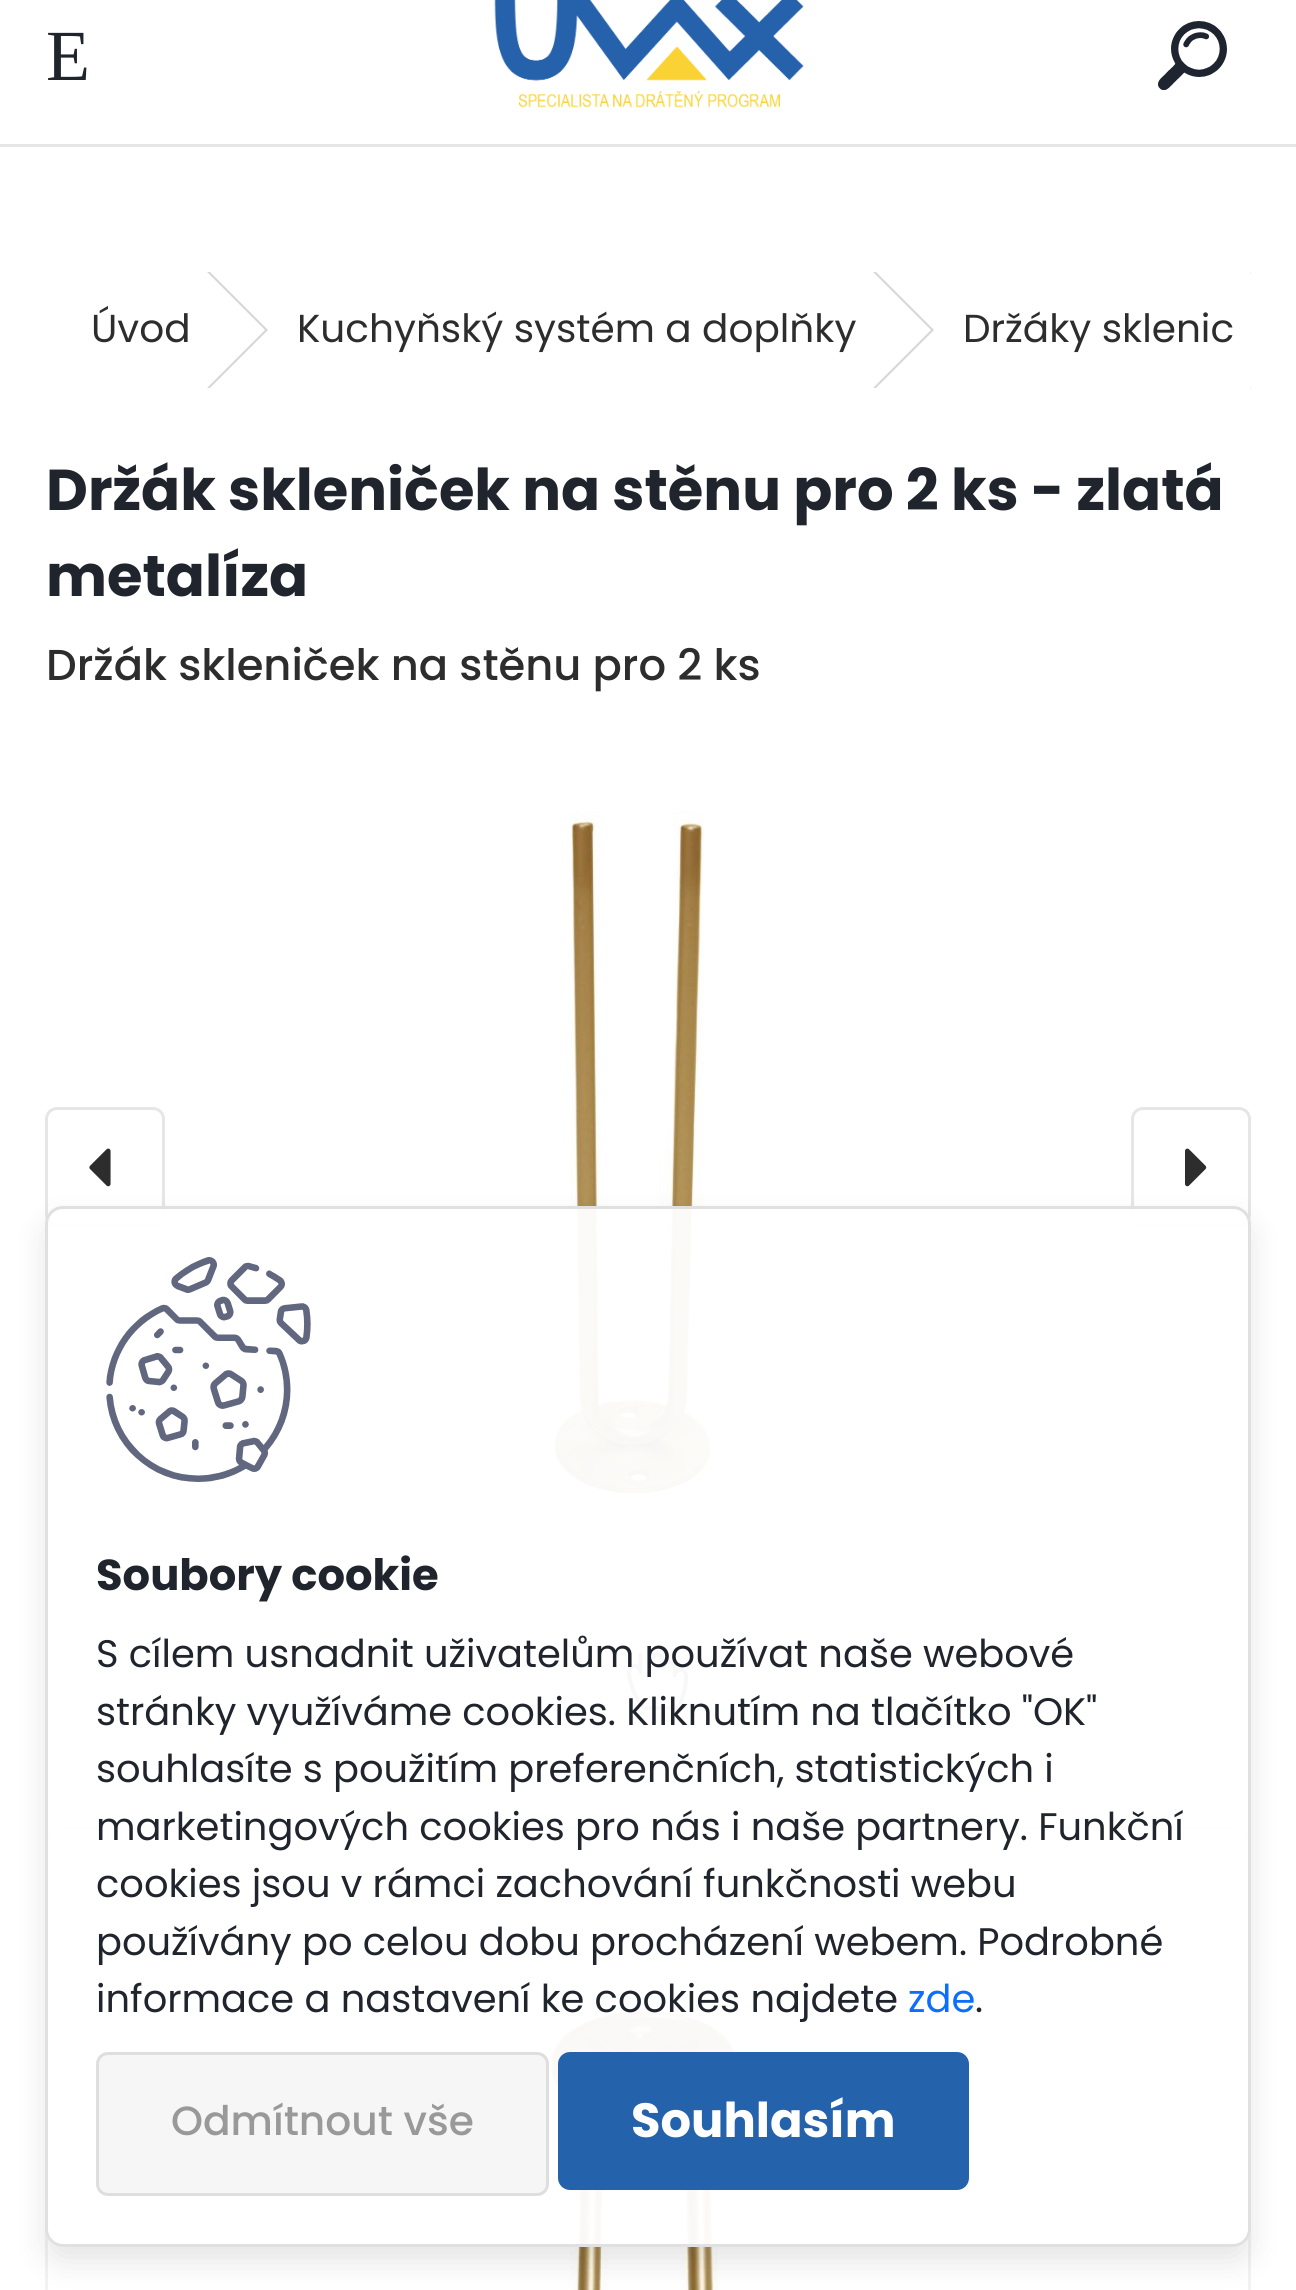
import math
import cairo


def round_path(ctx, x, y, w, h, r):
	ctx.new_sub_path()
	for i, (u, v) in enumerate([(x + w - r, y + h - r), (x + r, y + h - r), (x + r, y + r), (x + w - r, y + r)]):
		ctx.arc(u, v, r, i * math.pi / 2, (i + 1) * math.pi / 2)
	ctx.close_path()

def blur_box(ctx, x, y, w, h, r, blur, alpha):
	ctx.push_group_with_content(cairo.CONTENT_ALPHA)
	ctx.set_operator(cairo.OPERATOR_SOURCE)
	for i in range(15, -16, -2):
		e = blur * i / 6
		if min(w, h) + 2 * e > 0:
			ctx.set_source_rgba(0, 0, 0, alpha * math.erfc((i - 1) / 8.5) / 2)
			round_path(ctx, x - e, y - e, w + 2 * e, h + 2 * e, max(0, min(r + e + blur * .6, min(w, h) / 2 + e)))
			ctx.fill()
	ctx.mask(ctx.pop_group())

def paste(ctx, path, x, y, w, h):
	ctx.save()
	ctx.set_source_surface(cairo.ImageSurface.create_from_png(path), x, y)
	ctx.rectangle(x, y, w, h)
	ctx.fill()
	ctx.restore()

def draw(ctx):
	ctx.set_source_rgb(1, 1, 1)
	ctx.paint()
	ctx.set_source_rgb(0.902, 0.902, 0.902)
	ctx.rectangle(0, 144, 1296, 3)
	ctx.fill()
	ctx.select_font_face('Liberation Serif')
	ctx.set_font_size(72)
	ctx.set_source_rgb(0.122, 0.141, 0.176)
	ctx.move_to(46, 80)
	ctx.show_text('E')
	paste(ctx, 'media/1.png', 494, 0, 310, 108)
	paste(ctx, 'media/2.png', 1158, 21, 69, 69)
	ctx.select_font_face('Poppins')
	ctx.set_font_size(39)
	ctx.set_source_rgb(0.176, 0.176, 0.176)
	ctx.move_to(91, 342)
	ctx.show_text('Úvod')
	ctx.set_source_rgb(0.843, 0.843, 0.843)
	ctx.new_path()
	ctx.move_to(207, 272)
	ctx.line_to(210, 272)
	ctx.line_to(268, 330)
	ctx.line_to(265, 330)
	ctx.close_path()
	ctx.fill()
	ctx.new_path()
	ctx.move_to(265, 330)
	ctx.line_to(268, 330)
	ctx.line_to(210, 388)
	ctx.line_to(207, 388)
	ctx.close_path()
	ctx.fill()
	ctx.set_source_rgb(0.176, 0.176, 0.176)
	ctx.move_to(297, 342)
	ctx.show_text('Kuchyňský systém a doplňky')
	ctx.set_source_rgb(0.843, 0.843, 0.843)
	ctx.new_path()
	ctx.move_to(873, 272)
	ctx.line_to(876, 272)
	ctx.line_to(934, 330)
	ctx.line_to(931, 330)
	ctx.close_path()
	ctx.fill()
	ctx.new_path()
	ctx.move_to(931, 330)
	ctx.line_to(934, 330)
	ctx.line_to(876, 388)
	ctx.line_to(873, 388)
	ctx.close_path()
	ctx.fill()
	ctx.save()
	ctx.rectangle(45, 243, 1206, 174)
	ctx.clip()
	ctx.new_path()
	ctx.move_to(1250, 272)
	ctx.line_to(1253, 272)
	ctx.line_to(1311, 330)
	ctx.line_to(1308, 330)
	ctx.close_path()
	ctx.fill()
	ctx.restore()
	ctx.set_source_rgb(0.176, 0.176, 0.176)
	ctx.move_to(963, 342)
	ctx.show_text('Držáky sklenic')
	ctx.save()
	ctx.rectangle(45, 243, 1206, 174)
	ctx.clip()
	ctx.set_source_rgb(0.843, 0.843, 0.843)
	ctx.new_path()
	ctx.move_to(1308, 330)
	ctx.line_to(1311, 330)
	ctx.line_to(1253, 388)
	ctx.line_to(1250, 388)
	ctx.close_path()
	ctx.fill()
	ctx.restore()
	ctx.select_font_face('Poppins', cairo.FONT_SLANT_NORMAL, cairo.FONT_WEIGHT_BOLD)
	ctx.set_font_size(57.6)
	ctx.set_source_rgb(0.122, 0.141, 0.176)
	ctx.move_to(46, 510)
	ctx.show_text('Držák skleniček na stěnu pro 2 ks - zlatá')
	ctx.move_to(46, 596)
	ctx.show_text('metalíza')
	ctx.select_font_face('Poppins Medium')
	ctx.set_font_size(43.25)
	ctx.set_source_rgb(0.176, 0.176, 0.176)
	ctx.move_to(46, 680)
	ctx.show_text('Držák skleniček na stěnu pro 2 ks')
	paste(ctx, 'media/3.png', 542, 811, 176, 690)
	round_path(ctx, 46.5, 1108.5, 117, 117, 10.5)
	ctx.set_source_rgb(0.902, 0.902, 0.902)
	ctx.set_line_width(3)
	ctx.stroke()
	paste(ctx, 'media/4.png', 89, 1148, 22, 39)
	round_path(ctx, 1132.5, 1108.5, 117, 117, 10.5)
	ctx.stroke()
	paste(ctx, 'media/5.png', 1185, 1148, 22, 39)
	paste(ctx, 'media/6.png', 627, 1653, 62, 57)
	round_path(ctx, 46.5, 1828.5, 1203, 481, 16.5)
	ctx.set_source_rgb(0.949, 0.949, 0.949)
	ctx.stroke()
	paste(ctx, 'media/7.png', 549, 2001, 195, 289)
	ctx.save()
	ctx.set_fill_rule(cairo.FILL_RULE_EVEN_ODD)
	ctx.new_path()
	ctx.move_to(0, 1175)
	ctx.line_to(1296, 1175)
	ctx.line_to(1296, 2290)
	ctx.line_to(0, 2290)
	ctx.close_path()
	ctx.move_to(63, 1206)
	ctx.line_to(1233, 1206)
	ctx.curve_to(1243, 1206, 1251, 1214, 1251, 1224)
	ctx.line_to(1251, 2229)
	ctx.curve_to(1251, 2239, 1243, 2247, 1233, 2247)
	ctx.line_to(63, 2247)
	ctx.curve_to(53, 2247, 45, 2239, 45, 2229)
	ctx.line_to(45, 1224)
	ctx.curve_to(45, 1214, 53, 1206, 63, 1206)
	ctx.close_path()
	ctx.clip()
	ctx.set_source_rgb(0, 0, 0)
	blur_box(ctx, 45, 1221, 1206, 1041, 18, 15, 0.1)
	ctx.restore()
	ctx.set_source_rgba(1, 1, 1, 0.95)
	round_path(ctx, 46.5, 1207.5, 1203, 1038, 16.5)
	ctx.fill_preserve()
	ctx.set_source_rgb(0.878, 0.878, 0.878)
	ctx.stroke()
	paste(ctx, 'media/8.png', 106, 1257, 205, 225)
	ctx.select_font_face('Poppins', cairo.FONT_SLANT_NORMAL, cairo.FONT_WEIGHT_BOLD)
	ctx.set_source_rgb(0.122, 0.141, 0.176)
	ctx.move_to(96, 1590)
	ctx.show_text('Soubory cookie')
	ctx.select_font_face('Poppins')
	ctx.set_font_size(38.4)
	for x, y, s in [
		(96, 1667, 'S cílem usnadnit uživatelům používat naše webové'),
		(96, 1725, 'stránky využíváme cookies. Kliknutím na tlačítko "OK"'),
		(96, 1782, 'souhlasíte s použitím preferenčních, statistických i'),
		(96, 1840, 'marketingových cookies pro nás i naše partnery. Funkční'),
		(96, 1897, 'cookies jsou v rámci zachování funkčnosti webu'),
		(96, 1955, 'používány po celou dobu procházení webem. Podrobné'),
		(96, 2012, 'informace a nastavení ke cookies najdete'),
	]:
		ctx.move_to(x, y)
		ctx.show_text(s)
	ctx.set_source_rgb(0.051, 0.431, 0.992)
	ctx.move_to(908, 2012)
	ctx.show_text('zde')
	ctx.set_source_rgb(0.122, 0.141, 0.176)
	ctx.move_to(975, 2012)
	ctx.show_text('.')
	ctx.set_source_rgb(0.961, 0.961, 0.961)
	round_path(ctx, 96, 2052, 453, 144, 12)
	ctx.fill()
	round_path(ctx, 97.5, 2053.5, 450, 141, 10.5)
	ctx.set_source_rgba(0, 0, 0, 0.1)
	ctx.stroke()
	ctx.select_font_face('Poppins Medium')
	ctx.set_font_size(40.75)
	ctx.set_source_rgb(0.6, 0.6, 0.6)
	ctx.move_to(171, 2135)
	ctx.show_text('Odmítnout vše')
	ctx.set_source_rgb(0.141, 0.388, 0.671)
	round_path(ctx, 558, 2052, 411, 138, 12)
	ctx.fill()
	ctx.select_font_face('Poppins', cairo.FONT_SLANT_NORMAL, cairo.FONT_WEIGHT_BOLD)
	ctx.set_font_size(48)
	ctx.set_source_rgb(1, 1, 1)
	ctx.move_to(631, 2137)
	ctx.show_text('Souhlasím')


surface = cairo.ImageSurface(cairo.FORMAT_RGB24, 1296, 2290)
ctx = cairo.Context(surface)
options = cairo.FontOptions()
options.set_hint_metrics(cairo.HINT_METRICS_OFF)
options.set_hint_style(cairo.HINT_STYLE_NONE)
ctx.set_font_options(options)
ctx.set_miter_limit(4)
draw(ctx)
surface.write_to_png('image.png')
